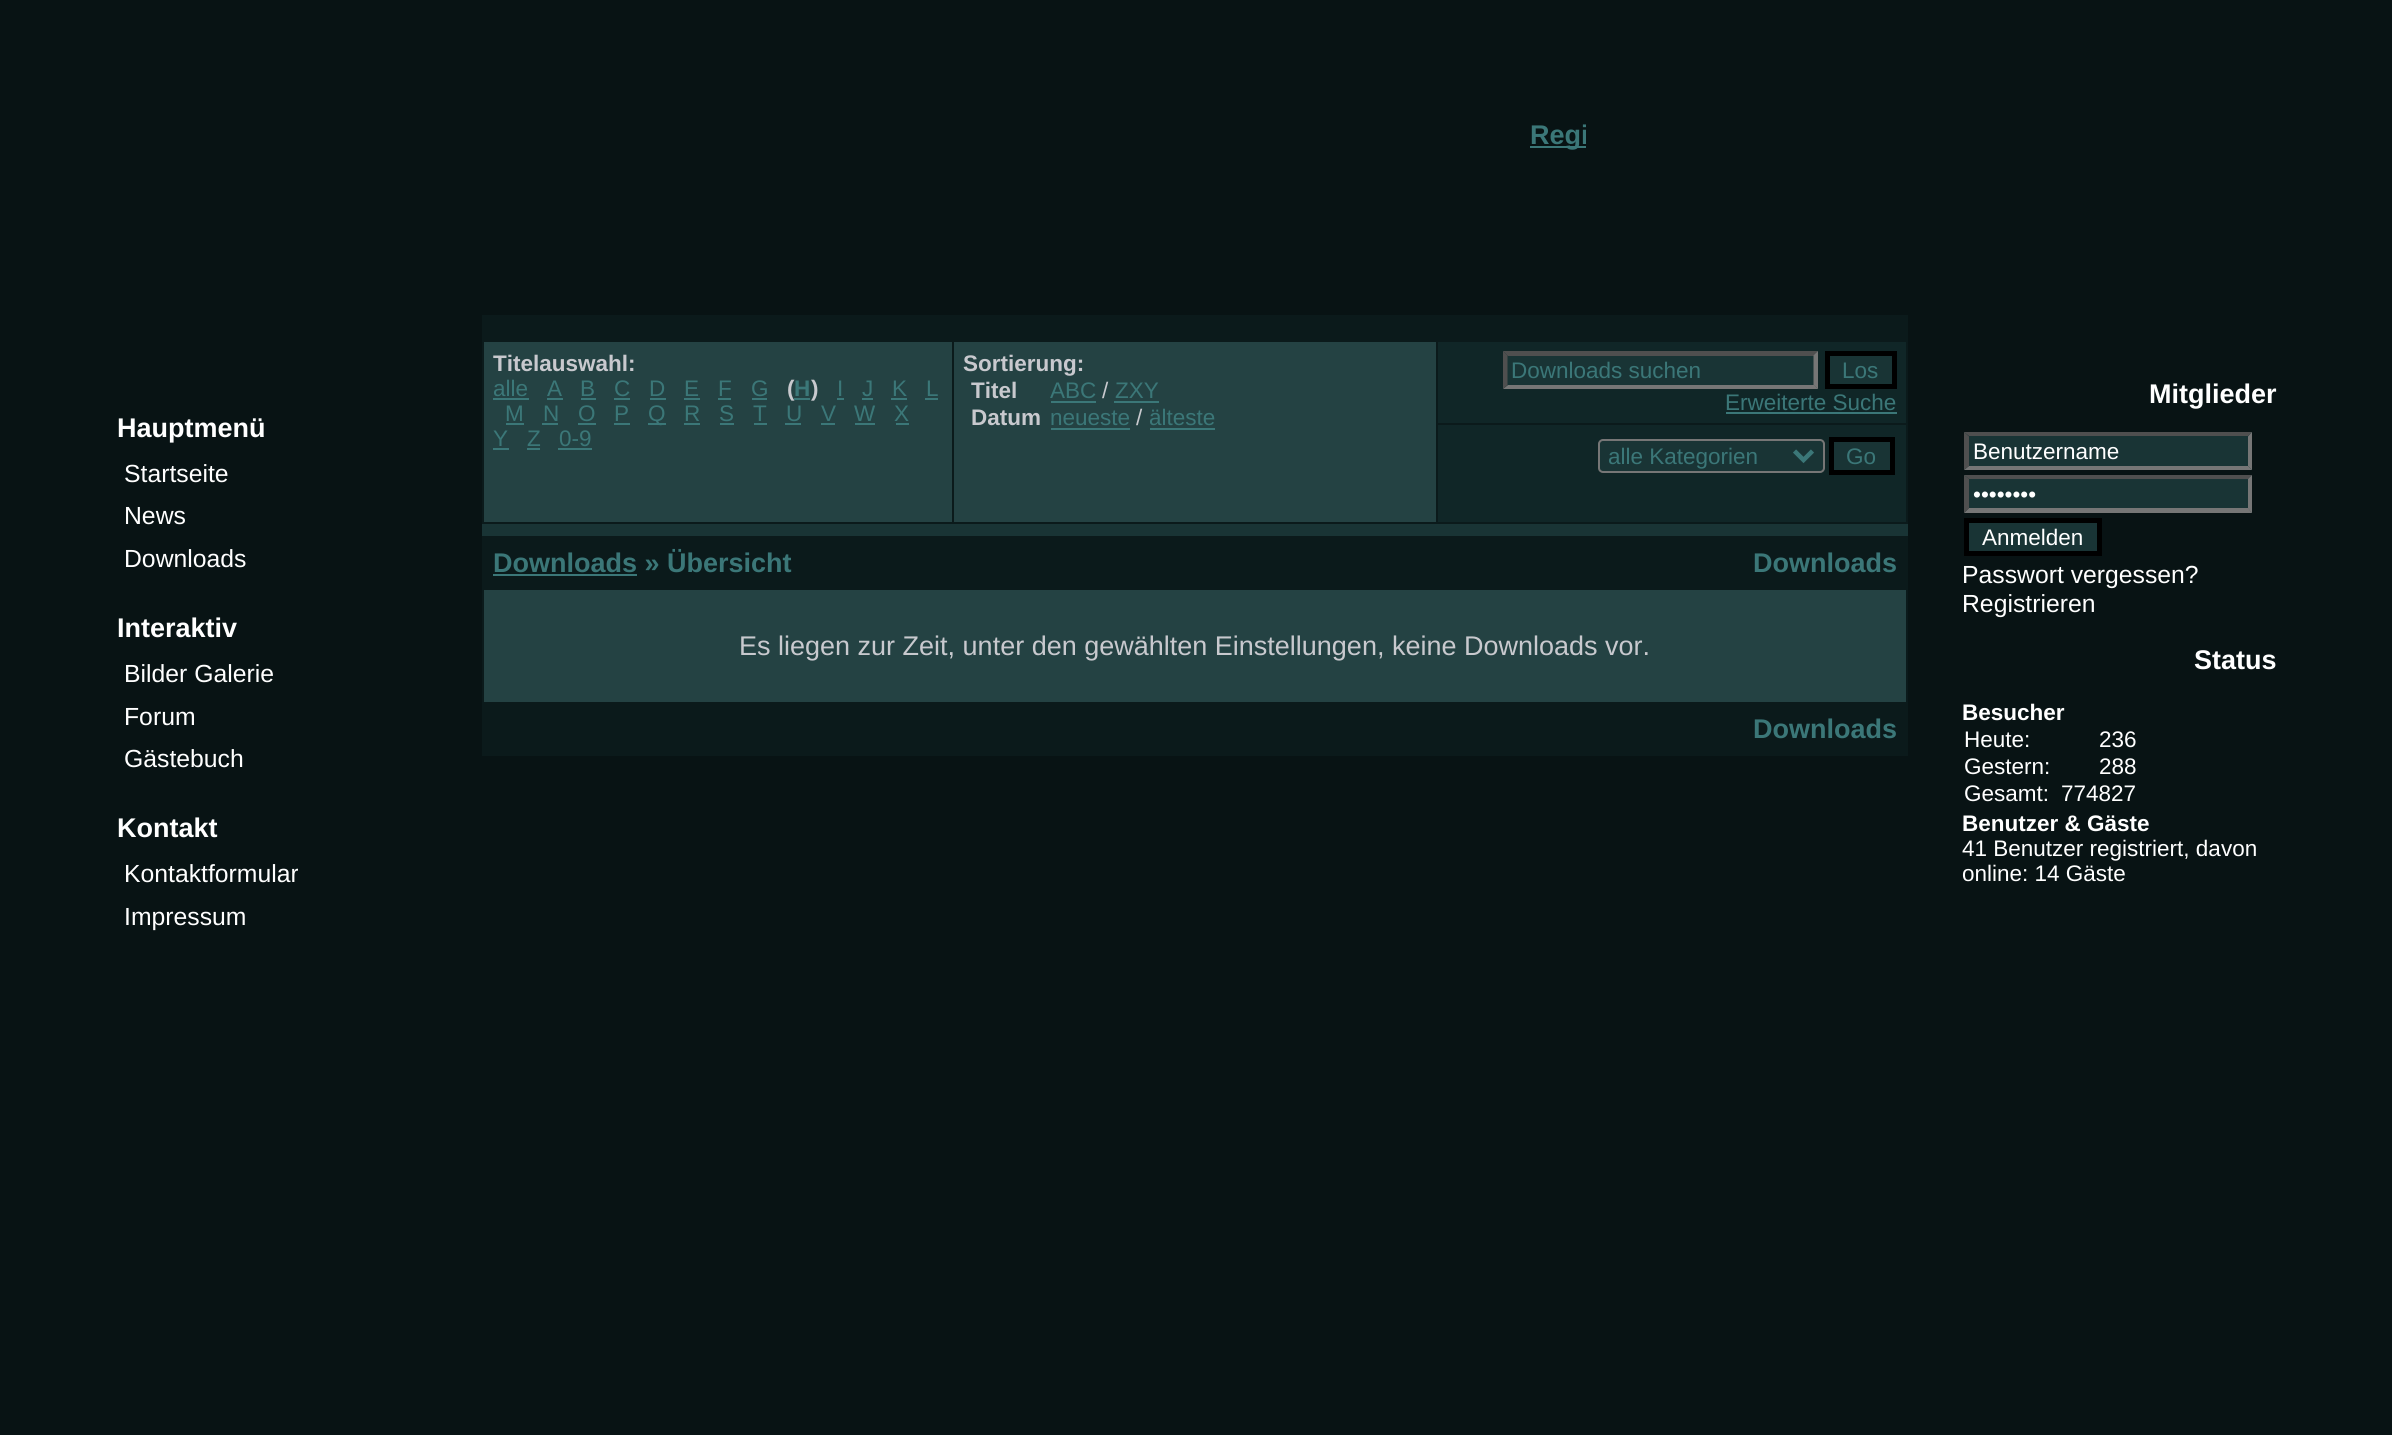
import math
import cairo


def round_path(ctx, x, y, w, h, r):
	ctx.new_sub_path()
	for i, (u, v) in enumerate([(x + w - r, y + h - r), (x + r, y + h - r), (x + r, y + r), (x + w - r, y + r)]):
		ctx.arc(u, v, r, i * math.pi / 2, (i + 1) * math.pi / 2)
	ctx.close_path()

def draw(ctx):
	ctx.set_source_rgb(0.035, 0.078, 0.082)
	ctx.paint()
	ctx.set_source_rgb(0.231, 0.467, 0.471)
	ctx.rectangle(1530, 146, 56, 2)
	ctx.fill()
	ctx.save()
	ctx.rectangle(803, 119, 783, 32)
	ctx.clip()
	ctx.select_font_face('Liberation Sans', cairo.FONT_SLANT_NORMAL, cairo.FONT_WEIGHT_BOLD)
	ctx.set_font_size(27)
	ctx.move_to(1530, 144)
	ctx.show_text('Regi')
	ctx.restore()
	ctx.select_font_face('Liberation Sans', cairo.FONT_SLANT_NORMAL, cairo.FONT_WEIGHT_BOLD)
	ctx.set_font_size(27)
	ctx.set_source_rgb(1, 1, 1)
	ctx.move_to(117, 437)
	ctx.show_text('Hauptmenü')
	ctx.select_font_face('Liberation Sans')
	ctx.set_font_size(24.75)
	for x, y, s in [
		(124, 482, 'Startseite'),
		(124, 524, 'News'),
		(124, 567, 'Downloads'),
	]:
		ctx.move_to(x, y)
		ctx.show_text(s)
	ctx.select_font_face('Liberation Sans', cairo.FONT_SLANT_NORMAL, cairo.FONT_WEIGHT_BOLD)
	ctx.set_font_size(27)
	ctx.move_to(117, 637)
	ctx.show_text('Interaktiv')
	ctx.select_font_face('Liberation Sans')
	ctx.set_font_size(24.75)
	for x, y, s in [
		(124, 682, 'Bilder Galerie'),
		(124, 725, 'Forum'),
		(124, 767, 'Gästebuch'),
	]:
		ctx.move_to(x, y)
		ctx.show_text(s)
	ctx.select_font_face('Liberation Sans', cairo.FONT_SLANT_NORMAL, cairo.FONT_WEIGHT_BOLD)
	ctx.set_font_size(27)
	ctx.move_to(117, 837)
	ctx.show_text('Kontakt')
	ctx.select_font_face('Liberation Sans')
	ctx.set_font_size(24.75)
	ctx.move_to(124, 882)
	ctx.show_text('Kontaktformular')
	ctx.move_to(124, 925)
	ctx.show_text('Impressum')
	ctx.set_source_rgb(0.098, 0.204, 0.208)
	ctx.rectangle(482, 524, 1426, 12)
	ctx.fill()
	ctx.set_source_rgb(0.043, 0.102, 0.106)
	ctx.rectangle(482, 315, 1426, 209)
	ctx.fill()
	ctx.set_source_rgb(0.141, 0.259, 0.263)
	ctx.rectangle(484, 342, 468, 180)
	ctx.fill()
	ctx.select_font_face('Liberation Sans', cairo.FONT_SLANT_NORMAL, cairo.FONT_WEIGHT_BOLD)
	ctx.set_font_size(22.5)
	ctx.set_source_rgb(0.784, 0.788, 0.808)
	ctx.move_to(493, 371)
	ctx.show_text('Titelauswahl:')
	ctx.select_font_face('Liberation Sans')
	ctx.set_source_rgb(0.231, 0.467, 0.471)
	ctx.move_to(493, 396)
	ctx.show_text('alle')
	ctx.rectangle(493, 398, 36, 2)
	ctx.fill()
	ctx.move_to(547, 396)
	ctx.show_text('A')
	ctx.rectangle(547, 398, 16, 2)
	ctx.fill()
	ctx.move_to(580, 396)
	ctx.show_text('B')
	ctx.rectangle(581, 398, 15, 2)
	ctx.fill()
	ctx.move_to(614, 396)
	ctx.show_text('C')
	ctx.rectangle(614, 398, 16, 2)
	ctx.fill()
	ctx.move_to(649, 396)
	ctx.show_text('D')
	ctx.rectangle(650, 398, 16, 2)
	ctx.fill()
	ctx.move_to(684, 396)
	ctx.show_text('E')
	ctx.rectangle(684, 398, 16, 2)
	ctx.fill()
	ctx.move_to(718, 396)
	ctx.show_text('F')
	ctx.rectangle(718, 398, 13, 2)
	ctx.fill()
	ctx.move_to(751, 396)
	ctx.show_text('G')
	ctx.rectangle(752, 398, 15, 2)
	ctx.fill()
	ctx.select_font_face('Liberation Sans', cairo.FONT_SLANT_NORMAL, cairo.FONT_WEIGHT_BOLD)
	ctx.set_source_rgb(0.784, 0.788, 0.808)
	ctx.move_to(787, 396)
	ctx.show_text('(')
	ctx.set_source_rgb(0.231, 0.467, 0.471)
	ctx.rectangle(794, 398, 16, 2)
	ctx.fill()
	ctx.move_to(794, 396)
	ctx.show_text('H')
	ctx.set_source_rgb(0.784, 0.788, 0.808)
	ctx.move_to(811, 396)
	ctx.show_text(')')
	ctx.select_font_face('Liberation Sans')
	ctx.set_source_rgb(0.231, 0.467, 0.471)
	ctx.move_to(837, 396)
	ctx.show_text('I')
	ctx.rectangle(837, 398, 7, 2)
	ctx.fill()
	ctx.move_to(862, 396)
	ctx.show_text('J')
	ctx.rectangle(862, 398, 11, 2)
	ctx.fill()
	ctx.move_to(892, 396)
	ctx.show_text('K')
	ctx.rectangle(891, 398, 16, 2)
	ctx.fill()
	ctx.move_to(926, 396)
	ctx.show_text('L')
	ctx.rectangle(925, 398, 13, 2)
	ctx.fill()
	ctx.move_to(505, 421)
	ctx.show_text('M')
	ctx.rectangle(506, 423, 18, 2)
	ctx.fill()
	ctx.move_to(543, 421)
	ctx.show_text('N')
	ctx.rectangle(542, 423, 16, 2)
	ctx.fill()
	ctx.move_to(578, 421)
	ctx.show_text('O')
	ctx.rectangle(578, 423, 18, 2)
	ctx.fill()
	ctx.move_to(614, 421)
	ctx.show_text('P')
	ctx.rectangle(614, 423, 16, 2)
	ctx.fill()
	ctx.rectangle(648, 423, 18, 2)
	ctx.fill()
	ctx.move_to(648, 421)
	ctx.show_text('Q')
	ctx.move_to(684, 421)
	ctx.show_text('R')
	ctx.rectangle(684, 423, 16, 2)
	ctx.fill()
	ctx.move_to(719, 421)
	ctx.show_text('S')
	ctx.rectangle(720, 423, 14, 2)
	ctx.fill()
	ctx.move_to(753, 421)
	ctx.show_text('T')
	ctx.rectangle(754, 423, 13, 2)
	ctx.fill()
	ctx.move_to(786, 421)
	ctx.show_text('U')
	ctx.rectangle(785, 423, 16, 2)
	ctx.fill()
	ctx.move_to(821, 421)
	ctx.show_text('V')
	ctx.rectangle(821, 423, 14, 2)
	ctx.fill()
	ctx.move_to(854, 421)
	ctx.show_text('W')
	ctx.rectangle(855, 423, 20, 2)
	ctx.fill()
	ctx.move_to(894, 421)
	ctx.show_text('X')
	ctx.rectangle(896, 423, 13, 2)
	ctx.fill()
	ctx.move_to(493, 446)
	ctx.show_text('Y')
	ctx.rectangle(493, 448, 16, 2)
	ctx.fill()
	ctx.move_to(527, 446)
	ctx.show_text('Z')
	ctx.rectangle(527, 448, 13, 2)
	ctx.fill()
	ctx.move_to(559, 446)
	ctx.show_text('0-9')
	ctx.rectangle(558, 448, 34, 2)
	ctx.fill()
	ctx.set_source_rgb(0.141, 0.259, 0.263)
	ctx.rectangle(954, 342, 482, 180)
	ctx.fill()
	ctx.select_font_face('Liberation Sans', cairo.FONT_SLANT_NORMAL, cairo.FONT_WEIGHT_BOLD)
	ctx.set_source_rgb(0.784, 0.788, 0.808)
	ctx.move_to(963, 371)
	ctx.show_text('Sortierung:')
	ctx.move_to(971, 398)
	ctx.show_text('Titel')
	ctx.select_font_face('Liberation Sans')
	ctx.set_source_rgb(0.231, 0.467, 0.471)
	ctx.move_to(1050, 398)
	ctx.show_text('ABC')
	ctx.rectangle(1051, 401, 45, 2)
	ctx.fill()
	ctx.set_source_rgb(0.784, 0.788, 0.808)
	ctx.move_to(1102, 398)
	ctx.show_text('/')
	ctx.set_source_rgb(0.231, 0.467, 0.471)
	ctx.move_to(1115, 398)
	ctx.show_text('ZXY')
	ctx.rectangle(1114, 401, 45, 2)
	ctx.fill()
	ctx.select_font_face('Liberation Sans', cairo.FONT_SLANT_NORMAL, cairo.FONT_WEIGHT_BOLD)
	ctx.set_source_rgb(0.784, 0.788, 0.808)
	ctx.move_to(971, 425)
	ctx.show_text('Datum')
	ctx.select_font_face('Liberation Sans')
	ctx.set_source_rgb(0.231, 0.467, 0.471)
	ctx.move_to(1050, 425)
	ctx.show_text('neueste')
	ctx.rectangle(1051, 428, 79, 2)
	ctx.fill()
	ctx.set_source_rgb(0.784, 0.788, 0.808)
	ctx.move_to(1136, 425)
	ctx.show_text('/')
	ctx.set_source_rgb(0.231, 0.467, 0.471)
	ctx.move_to(1149, 425)
	ctx.show_text('älteste')
	ctx.rectangle(1150, 428, 65, 2)
	ctx.fill()
	ctx.set_source_rgb(0.063, 0.149, 0.153)
	ctx.rectangle(1438, 342, 468, 81)
	ctx.fill()
	ctx.set_source_rgb(0.098, 0.204, 0.208)
	ctx.rectangle(1503, 351, 315, 38)
	ctx.fill()
	ctx.set_source_rgb(0.31, 0.31, 0.31)
	ctx.new_path()
	ctx.move_to(1503, 351)
	ctx.line_to(1818, 351)
	ctx.line_to(1814, 356)
	ctx.line_to(1508, 356)
	ctx.close_path()
	ctx.fill()
	ctx.set_source_rgb(0.463, 0.463, 0.463)
	ctx.new_path()
	ctx.move_to(1818, 351)
	ctx.line_to(1818, 389)
	ctx.line_to(1813.5, 385)
	ctx.line_to(1813.5, 355.5)
	ctx.close_path()
	ctx.fill()
	ctx.new_path()
	ctx.move_to(1818, 389)
	ctx.line_to(1503, 389)
	ctx.line_to(1508, 385)
	ctx.line_to(1814, 385)
	ctx.close_path()
	ctx.fill()
	ctx.set_source_rgb(0.31, 0.31, 0.31)
	ctx.new_path()
	ctx.move_to(1503, 389)
	ctx.line_to(1503, 351)
	ctx.line_to(1507.5, 355.5)
	ctx.line_to(1507.5, 385)
	ctx.close_path()
	ctx.fill()
	ctx.set_source_rgb(0.231, 0.467, 0.471)
	ctx.move_to(1511, 378)
	ctx.show_text('Downloads suchen')
	ctx.set_source_rgb(0.098, 0.204, 0.208)
	ctx.rectangle(1827.5, 353.5, 67, 33)
	ctx.fill_preserve()
	ctx.set_source_rgb(0, 0, 0)
	ctx.set_line_width(5)
	ctx.stroke()
	ctx.set_source_rgb(0.231, 0.467, 0.471)
	ctx.move_to(1842, 378)
	ctx.show_text('Los')
	ctx.move_to(1725, 410)
	ctx.show_text('Erweiterte Suche')
	ctx.rectangle(1726, 412, 171, 2)
	ctx.fill()
	ctx.set_source_rgb(0.063, 0.149, 0.153)
	ctx.rectangle(1438, 425, 468, 97)
	ctx.fill()
	ctx.set_source_rgb(0.098, 0.204, 0.208)
	round_path(ctx, 1599, 440, 225, 32, 4)
	ctx.fill_preserve()
	ctx.set_source_rgb(0.463, 0.463, 0.463)
	ctx.set_line_width(2)
	ctx.stroke()
	ctx.new_path()
	ctx.move_to(1794.5, 451)
	ctx.line_to(1803.5, 460)
	ctx.line_to(1812.5, 451)
	ctx.set_source_rgb(0.231, 0.467, 0.471)
	ctx.set_line_width(4.5)
	ctx.stroke()
	ctx.move_to(1608, 464)
	ctx.show_text('alle Kategorien')
	ctx.set_source_rgb(0.098, 0.204, 0.208)
	ctx.rectangle(1831.5, 439.5, 61, 33)
	ctx.fill_preserve()
	ctx.set_source_rgb(0, 0, 0)
	ctx.set_line_width(5)
	ctx.stroke()
	ctx.set_source_rgb(0.231, 0.467, 0.471)
	ctx.move_to(1846, 464)
	ctx.show_text('Go')
	ctx.set_source_rgb(0.043, 0.102, 0.106)
	ctx.rectangle(482, 536, 1426, 220)
	ctx.fill()
	ctx.select_font_face('Liberation Sans', cairo.FONT_SLANT_NORMAL, cairo.FONT_WEIGHT_BOLD)
	ctx.set_font_size(27)
	ctx.set_source_rgb(0.231, 0.467, 0.471)
	ctx.move_to(493, 572)
	ctx.show_text('Downloads » Übersicht')
	ctx.rectangle(493, 574, 144, 2)
	ctx.fill()
	ctx.move_to(1753, 572)
	ctx.show_text('Downloads')
	ctx.set_source_rgb(0.141, 0.259, 0.263)
	ctx.rectangle(484, 590, 1422, 112)
	ctx.fill()
	ctx.select_font_face('Liberation Sans')
	ctx.set_source_rgb(0.784, 0.788, 0.808)
	ctx.move_to(739, 655)
	ctx.show_text('Es liegen zur Zeit, unter den gewählten Einstellungen, keine Downloads vor.')
	ctx.select_font_face('Liberation Sans', cairo.FONT_SLANT_NORMAL, cairo.FONT_WEIGHT_BOLD)
	ctx.set_source_rgb(0.231, 0.467, 0.471)
	ctx.move_to(1753, 738)
	ctx.show_text('Downloads')
	ctx.set_source_rgb(1, 1, 1)
	ctx.move_to(2149, 403)
	ctx.show_text('Mitglieder')
	ctx.set_source_rgb(0.098, 0.204, 0.208)
	ctx.rectangle(1964, 432, 288, 38)
	ctx.fill()
	ctx.set_source_rgb(0.31, 0.31, 0.31)
	ctx.new_path()
	ctx.move_to(1964, 432)
	ctx.line_to(2252, 432)
	ctx.line_to(2248, 436)
	ctx.line_to(1969, 436)
	ctx.close_path()
	ctx.fill()
	ctx.set_source_rgb(0.463, 0.463, 0.463)
	ctx.new_path()
	ctx.move_to(2252, 432)
	ctx.line_to(2252, 470)
	ctx.line_to(2248, 466)
	ctx.line_to(2248, 436.5)
	ctx.close_path()
	ctx.fill()
	ctx.new_path()
	ctx.move_to(2252, 470)
	ctx.line_to(1964, 470)
	ctx.line_to(1969, 466)
	ctx.line_to(2248, 466)
	ctx.close_path()
	ctx.fill()
	ctx.set_source_rgb(0.31, 0.31, 0.31)
	ctx.new_path()
	ctx.move_to(1964, 470)
	ctx.line_to(1964, 432)
	ctx.line_to(1969, 436.5)
	ctx.line_to(1969, 466)
	ctx.close_path()
	ctx.fill()
	ctx.select_font_face('Liberation Sans')
	ctx.set_font_size(22.5)
	ctx.set_source_rgb(1, 1, 1)
	ctx.move_to(1973, 459)
	ctx.show_text('Benutzername')
	ctx.set_source_rgb(0.098, 0.204, 0.208)
	ctx.rectangle(1964, 475, 288, 38)
	ctx.fill()
	ctx.set_source_rgb(0.31, 0.31, 0.31)
	ctx.new_path()
	ctx.move_to(1964, 475)
	ctx.line_to(2252, 475)
	ctx.line_to(2248, 479)
	ctx.line_to(1969, 479)
	ctx.close_path()
	ctx.fill()
	ctx.set_source_rgb(0.463, 0.463, 0.463)
	ctx.new_path()
	ctx.move_to(2252, 475)
	ctx.line_to(2252, 513)
	ctx.line_to(2248, 508.5)
	ctx.line_to(2248, 479)
	ctx.close_path()
	ctx.fill()
	ctx.new_path()
	ctx.move_to(2252, 513)
	ctx.line_to(1964, 513)
	ctx.line_to(1969, 508)
	ctx.line_to(2248, 508)
	ctx.close_path()
	ctx.fill()
	ctx.set_source_rgb(0.31, 0.31, 0.31)
	ctx.new_path()
	ctx.move_to(1964, 513)
	ctx.line_to(1964, 475)
	ctx.line_to(1969, 479)
	ctx.line_to(1969, 508.5)
	ctx.close_path()
	ctx.fill()
	ctx.set_source_rgb(1, 1, 1)
	ctx.move_to(1973, 502)
	ctx.show_text('••••••••')
	ctx.set_source_rgb(0.098, 0.204, 0.208)
	ctx.rectangle(1966.5, 520.5, 133, 33)
	ctx.fill_preserve()
	ctx.set_source_rgb(0, 0, 0)
	ctx.stroke()
	ctx.set_source_rgb(1, 1, 1)
	ctx.move_to(1982, 545)
	ctx.show_text('Anmelden')
	ctx.set_font_size(24.75)
	ctx.move_to(1962, 583)
	ctx.show_text('Passwort vergessen?')
	ctx.move_to(1962, 612)
	ctx.show_text('Registrieren')
	ctx.select_font_face('Liberation Sans', cairo.FONT_SLANT_NORMAL, cairo.FONT_WEIGHT_BOLD)
	ctx.set_font_size(27)
	ctx.move_to(2194, 669)
	ctx.show_text('Status')
	ctx.set_font_size(22.5)
	ctx.move_to(1962, 720)
	ctx.show_text('Besucher')
	ctx.select_font_face('Liberation Sans')
	for x, y, s in [
		(1964, 747, 'Heute:'),
		(2099, 747, '236'),
		(1964, 774, 'Gestern:'),
		(2099, 774, '288'),
		(1964, 801, 'Gesamt:'),
		(2061, 801, '774827'),
	]:
		ctx.move_to(x, y)
		ctx.show_text(s)
	ctx.select_font_face('Liberation Sans', cairo.FONT_SLANT_NORMAL, cairo.FONT_WEIGHT_BOLD)
	ctx.move_to(1962, 831)
	ctx.show_text('Benutzer & Gäste')
	ctx.select_font_face('Liberation Sans')
	ctx.move_to(1962, 856)
	ctx.show_text('41 Benutzer registriert, davon')
	ctx.move_to(1962, 881)
	ctx.show_text('online: 14 Gäste')


surface = cairo.ImageSurface(cairo.FORMAT_RGB24, 2392, 1435)
ctx = cairo.Context(surface)
options = cairo.FontOptions()
options.set_hint_metrics(cairo.HINT_METRICS_OFF)
options.set_hint_style(cairo.HINT_STYLE_NONE)
ctx.set_font_options(options)
ctx.set_miter_limit(4)
draw(ctx)
surface.write_to_png('image.png')
